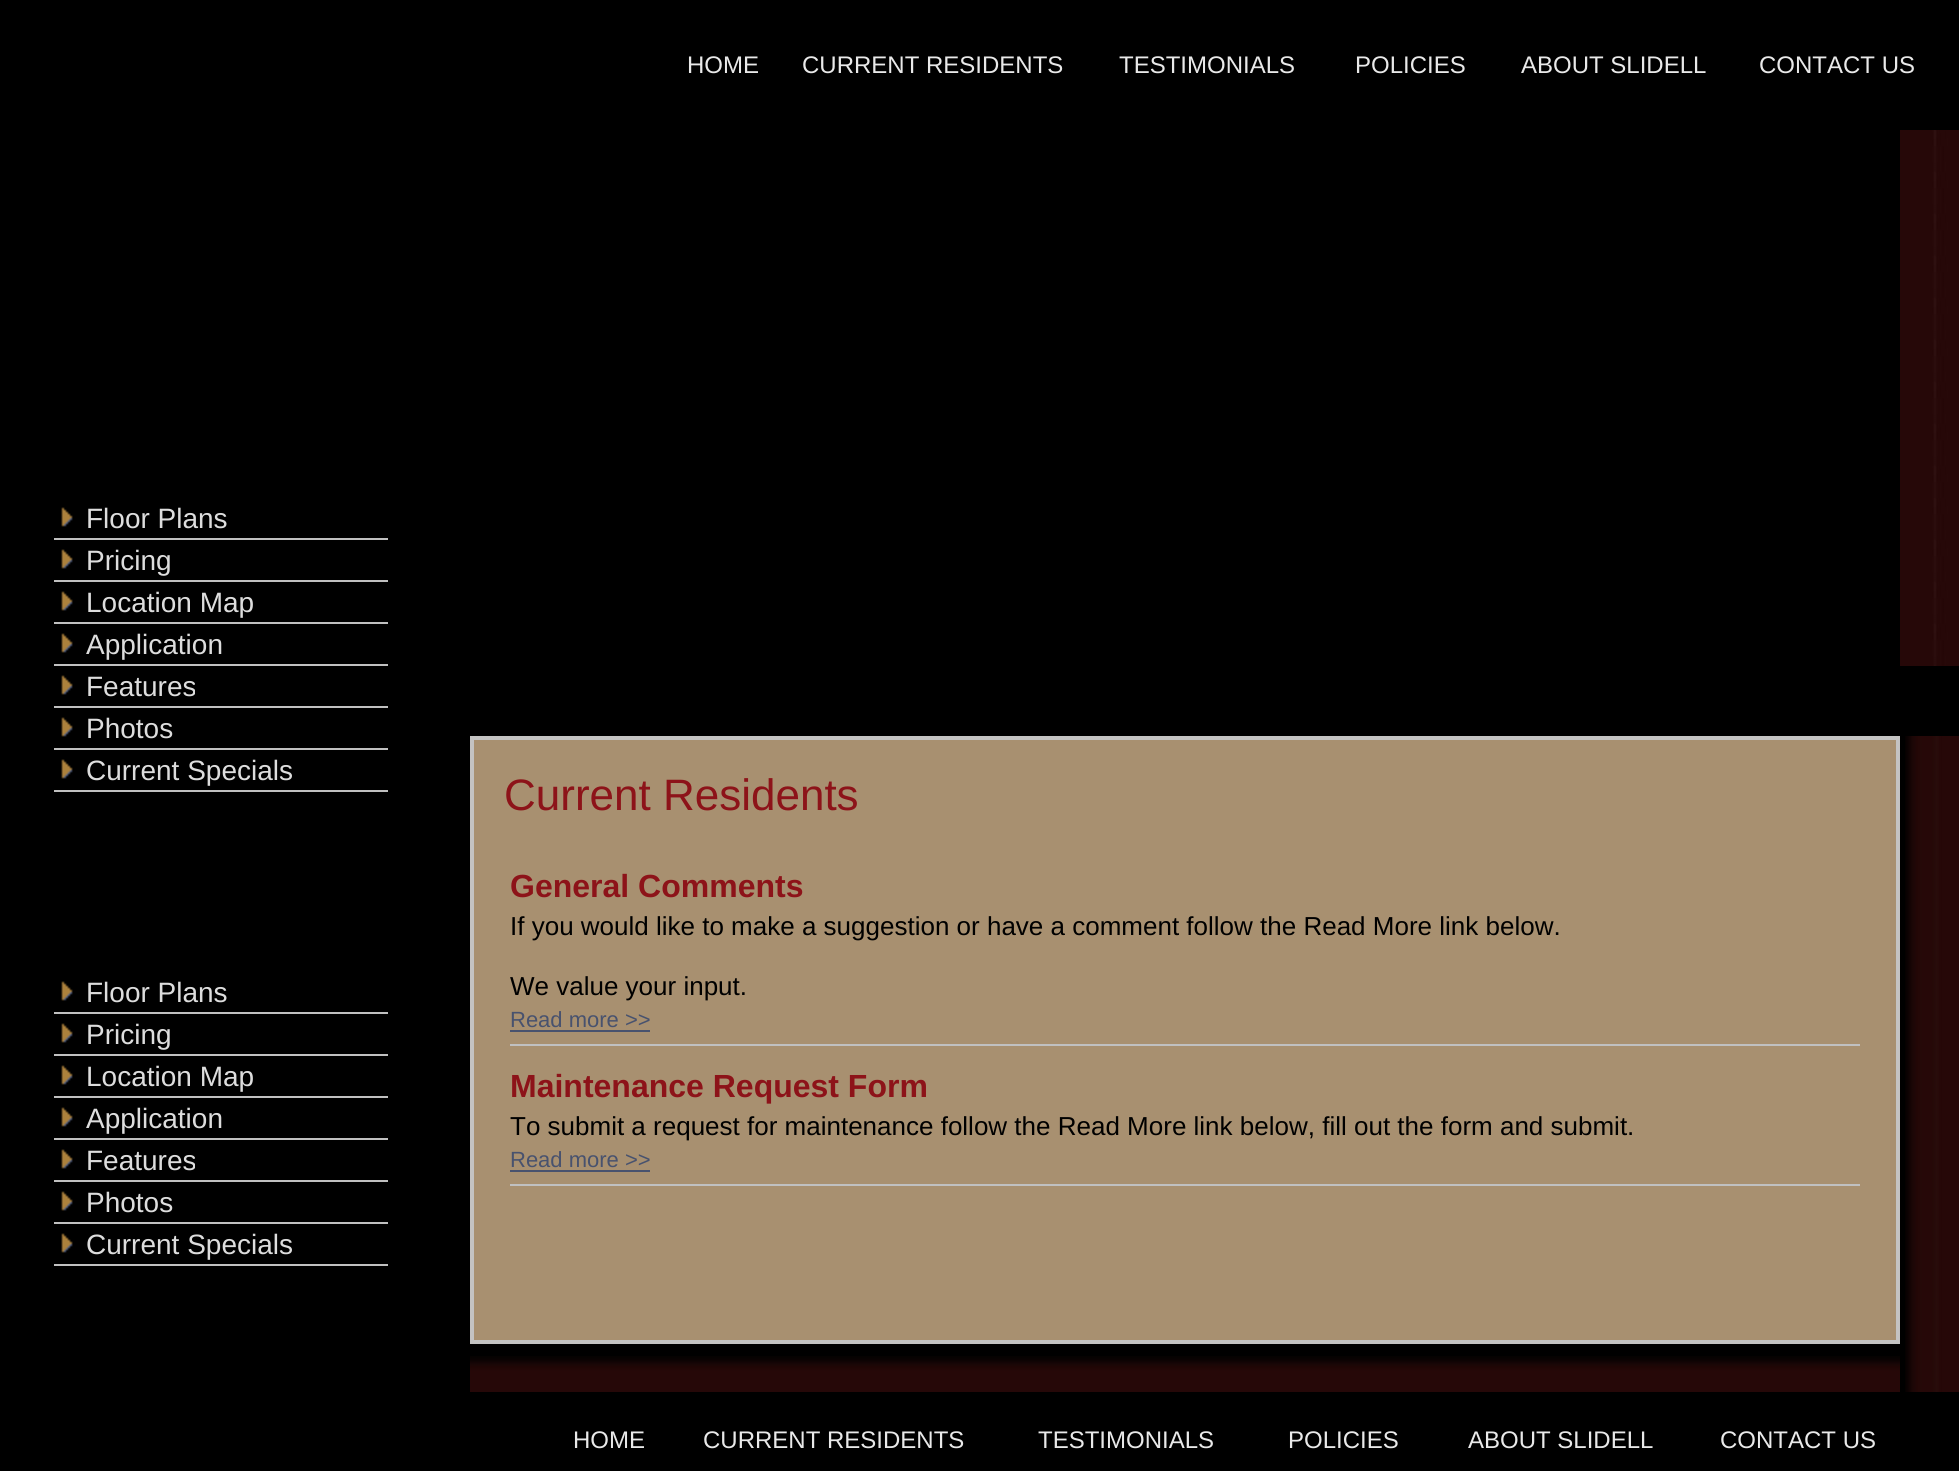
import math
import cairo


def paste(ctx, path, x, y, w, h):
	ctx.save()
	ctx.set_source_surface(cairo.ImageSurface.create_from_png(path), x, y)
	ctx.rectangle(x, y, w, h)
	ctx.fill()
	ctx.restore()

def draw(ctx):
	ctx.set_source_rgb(0, 0, 0)
	ctx.paint()
	ctx.select_font_face('Liberation Sans')
	ctx.set_font_size(24)
	ctx.set_source_rgb(0.914, 0.914, 0.914)
	for x, y, s in [
		(687, 73, 'HOME'),
		(802, 73, 'CURRENT RESIDENTS'),
		(1119, 73, 'TESTIMONIALS'),
		(1355, 73, 'POLICIES'),
		(1521, 73, 'ABOUT SLIDELL'),
		(1759, 73, 'CONTACT US'),
	]:
		ctx.move_to(x, y)
		ctx.show_text(s)
	paste(ctx, 'media/1.png', 61, 507, 12, 20)
	ctx.set_font_size(28)
	ctx.set_source_rgb(0.867, 0.867, 0.867)
	ctx.move_to(86, 528)
	ctx.show_text('Floor Plans')
	ctx.set_source_rgb(0.753, 0.753, 0.753)
	ctx.rectangle(54, 538, 334, 2)
	ctx.fill()
	paste(ctx, 'media/1.png', 61, 549, 12, 20)
	ctx.set_source_rgb(0.867, 0.867, 0.867)
	ctx.move_to(86, 570)
	ctx.show_text('Pricing')
	ctx.set_source_rgb(0.753, 0.753, 0.753)
	ctx.rectangle(54, 580, 334, 2)
	ctx.fill()
	paste(ctx, 'media/1.png', 61, 591, 12, 20)
	ctx.set_source_rgb(0.867, 0.867, 0.867)
	ctx.move_to(86, 612)
	ctx.show_text('Location Map')
	ctx.set_source_rgb(0.753, 0.753, 0.753)
	ctx.rectangle(54, 622, 334, 2)
	ctx.fill()
	paste(ctx, 'media/1.png', 61, 633, 12, 20)
	ctx.set_source_rgb(0.867, 0.867, 0.867)
	ctx.move_to(86, 654)
	ctx.show_text('Application')
	ctx.set_source_rgb(0.753, 0.753, 0.753)
	ctx.rectangle(54, 664, 334, 2)
	ctx.fill()
	paste(ctx, 'media/1.png', 61, 675, 12, 20)
	ctx.set_source_rgb(0.867, 0.867, 0.867)
	ctx.move_to(86, 696)
	ctx.show_text('Features')
	ctx.set_source_rgb(0.753, 0.753, 0.753)
	ctx.rectangle(54, 706, 334, 2)
	ctx.fill()
	paste(ctx, 'media/1.png', 61, 717, 12, 20)
	ctx.set_source_rgb(0.867, 0.867, 0.867)
	ctx.move_to(86, 738)
	ctx.show_text('Photos')
	ctx.set_source_rgb(0.753, 0.753, 0.753)
	ctx.rectangle(54, 748, 334, 2)
	ctx.fill()
	paste(ctx, 'media/1.png', 61, 759, 12, 20)
	ctx.set_source_rgb(0.867, 0.867, 0.867)
	ctx.move_to(86, 780)
	ctx.show_text('Current Specials')
	ctx.set_source_rgb(0.753, 0.753, 0.753)
	ctx.rectangle(54, 790, 334, 2)
	ctx.fill()
	paste(ctx, 'media/1.png', 61, 981, 12, 20)
	ctx.set_source_rgb(0.867, 0.867, 0.867)
	ctx.move_to(86, 1002)
	ctx.show_text('Floor Plans')
	ctx.set_source_rgb(0.753, 0.753, 0.753)
	ctx.rectangle(54, 1012, 334, 2)
	ctx.fill()
	paste(ctx, 'media/1.png', 61, 1023, 12, 20)
	ctx.set_source_rgb(0.867, 0.867, 0.867)
	ctx.move_to(86, 1044)
	ctx.show_text('Pricing')
	ctx.set_source_rgb(0.753, 0.753, 0.753)
	ctx.rectangle(54, 1054, 334, 2)
	ctx.fill()
	paste(ctx, 'media/1.png', 61, 1065, 12, 20)
	ctx.set_source_rgb(0.867, 0.867, 0.867)
	ctx.move_to(86, 1086)
	ctx.show_text('Location Map')
	ctx.set_source_rgb(0.753, 0.753, 0.753)
	ctx.rectangle(54, 1096, 334, 2)
	ctx.fill()
	paste(ctx, 'media/1.png', 61, 1107, 12, 20)
	ctx.set_source_rgb(0.867, 0.867, 0.867)
	ctx.move_to(86, 1128)
	ctx.show_text('Application')
	ctx.set_source_rgb(0.753, 0.753, 0.753)
	ctx.rectangle(54, 1138, 334, 2)
	ctx.fill()
	paste(ctx, 'media/1.png', 61, 1149, 12, 20)
	ctx.set_source_rgb(0.867, 0.867, 0.867)
	ctx.move_to(86, 1170)
	ctx.show_text('Features')
	ctx.set_source_rgb(0.753, 0.753, 0.753)
	ctx.rectangle(54, 1180, 334, 2)
	ctx.fill()
	paste(ctx, 'media/1.png', 61, 1191, 12, 20)
	ctx.set_source_rgb(0.867, 0.867, 0.867)
	ctx.move_to(86, 1212)
	ctx.show_text('Photos')
	ctx.set_source_rgb(0.753, 0.753, 0.753)
	ctx.rectangle(54, 1222, 334, 2)
	ctx.fill()
	paste(ctx, 'media/1.png', 61, 1233, 12, 20)
	ctx.set_source_rgb(0.867, 0.867, 0.867)
	ctx.move_to(86, 1254)
	ctx.show_text('Current Specials')
	ctx.set_source_rgb(0.753, 0.753, 0.753)
	ctx.rectangle(54, 1264, 334, 2)
	ctx.fill()
	paste(ctx, 'media/2.png', 1900, 130, 59, 368)
	paste(ctx, 'media/3.png', 1900, 498, 59, 168)
	ctx.set_source_rgb(0.769, 0.765, 0.761)
	ctx.rectangle(470, 736, 1430, 608)
	ctx.fill()
	ctx.set_source_rgb(0.659, 0.565, 0.439)
	ctx.rectangle(474, 740, 1422, 600)
	ctx.fill()
	ctx.set_font_size(44)
	ctx.set_source_rgb(0.553, 0.078, 0.098)
	ctx.move_to(504, 810)
	ctx.show_text('Current Residents')
	ctx.select_font_face('Liberation Sans', cairo.FONT_SLANT_NORMAL, cairo.FONT_WEIGHT_BOLD)
	ctx.set_font_size(32)
	ctx.move_to(510, 897)
	ctx.show_text('General Comments')
	ctx.select_font_face('Liberation Sans')
	ctx.set_font_size(26)
	ctx.set_source_rgb(0, 0, 0)
	ctx.move_to(510, 935)
	ctx.show_text('If you would like to make a suggestion or have a comment follow the Read More link below.')
	ctx.move_to(510, 995)
	ctx.show_text('We value your input.')
	ctx.set_font_size(22)
	ctx.set_source_rgb(0.282, 0.322, 0.431)
	ctx.move_to(510, 1027)
	ctx.show_text('Read more >>')
	ctx.rectangle(510, 1030, 140, 2)
	ctx.fill()
	ctx.set_source_rgb(0.753, 0.753, 0.753)
	ctx.rectangle(510, 1044, 1350, 2)
	ctx.fill()
	ctx.select_font_face('Liberation Sans', cairo.FONT_SLANT_NORMAL, cairo.FONT_WEIGHT_BOLD)
	ctx.set_font_size(32)
	ctx.set_source_rgb(0.553, 0.078, 0.098)
	ctx.move_to(510, 1097)
	ctx.show_text('Maintenance Request Form')
	ctx.select_font_face('Liberation Sans')
	ctx.set_font_size(26)
	ctx.set_source_rgb(0, 0, 0)
	ctx.move_to(510, 1135)
	ctx.show_text('To submit a request for maintenance follow the Read More link below, fill out the form and submit.')
	ctx.set_font_size(22)
	ctx.set_source_rgb(0.282, 0.322, 0.431)
	ctx.move_to(510, 1167)
	ctx.show_text('Read more >>')
	ctx.rectangle(510, 1170, 140, 2)
	ctx.fill()
	ctx.set_source_rgb(0.753, 0.753, 0.753)
	ctx.rectangle(510, 1184, 1350, 2)
	ctx.fill()
	paste(ctx, 'media/4.png', 470, 1356, 1430, 36)
	paste(ctx, 'media/5.png', 1905, 736, 54, 158)
	paste(ctx, 'media/6.png', 1905, 894, 54, 498)
	ctx.set_font_size(24)
	ctx.set_source_rgb(0.914, 0.914, 0.914)
	for x, y, s in [
		(573, 1448, 'HOME'),
		(703, 1448, 'CURRENT RESIDENTS'),
		(1038, 1448, 'TESTIMONIALS'),
		(1288, 1448, 'POLICIES'),
		(1468, 1448, 'ABOUT SLIDELL'),
		(1720, 1448, 'CONTACT US'),
	]:
		ctx.move_to(x, y)
		ctx.show_text(s)


surface = cairo.ImageSurface(cairo.FORMAT_RGB24, 1959, 1471)
ctx = cairo.Context(surface)
options = cairo.FontOptions()
options.set_hint_metrics(cairo.HINT_METRICS_OFF)
options.set_hint_style(cairo.HINT_STYLE_NONE)
ctx.set_font_options(options)
ctx.set_miter_limit(4)
draw(ctx)
surface.write_to_png('image.png')
